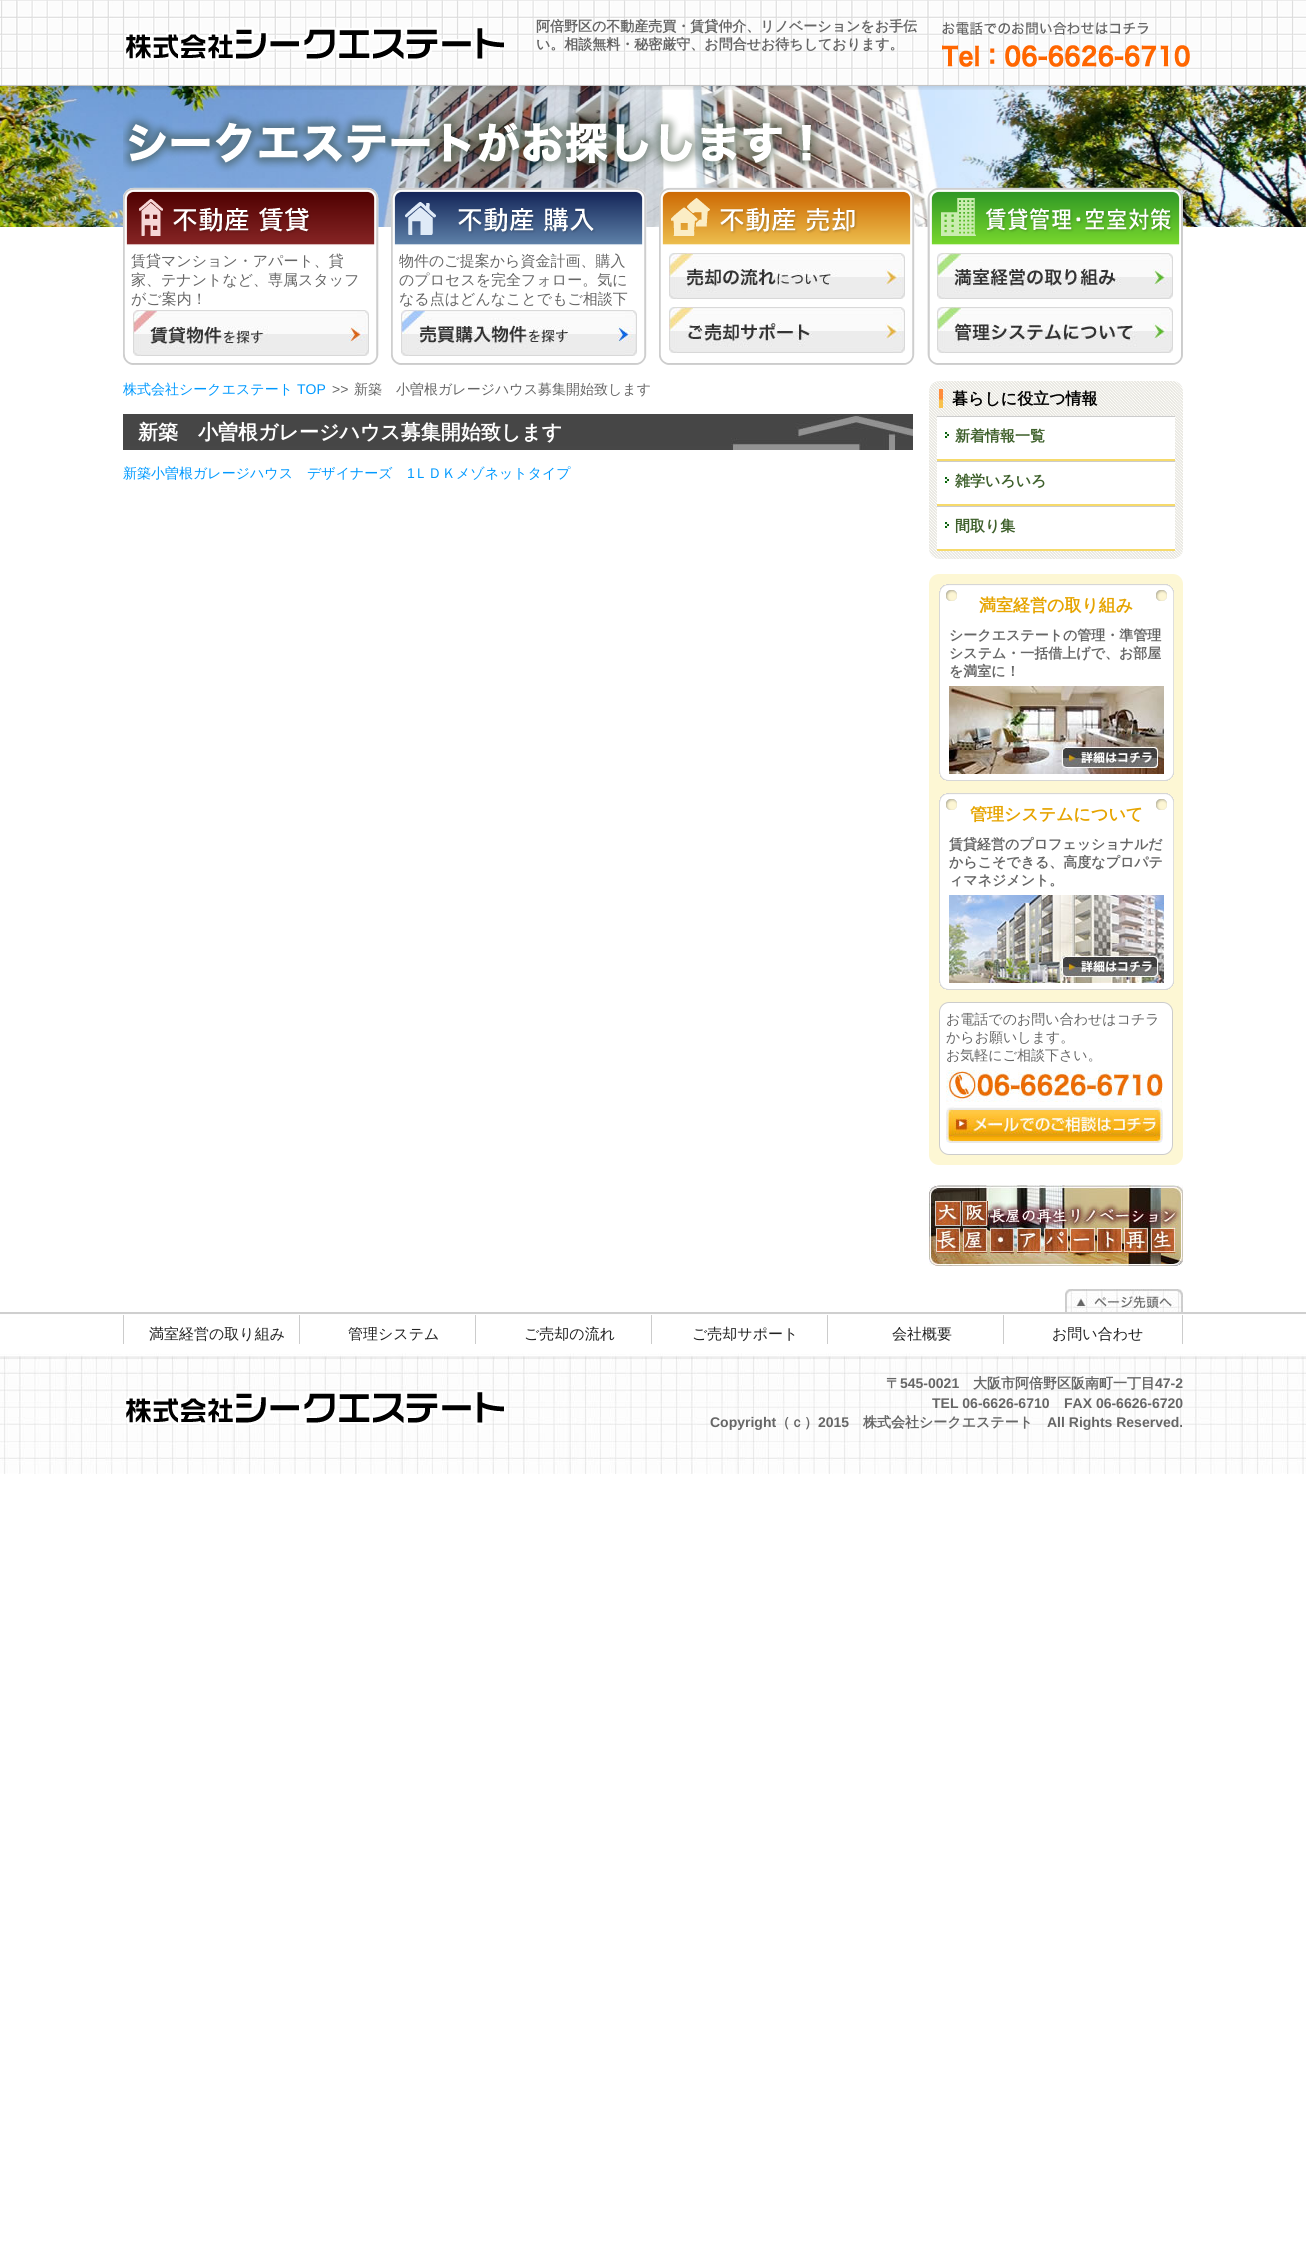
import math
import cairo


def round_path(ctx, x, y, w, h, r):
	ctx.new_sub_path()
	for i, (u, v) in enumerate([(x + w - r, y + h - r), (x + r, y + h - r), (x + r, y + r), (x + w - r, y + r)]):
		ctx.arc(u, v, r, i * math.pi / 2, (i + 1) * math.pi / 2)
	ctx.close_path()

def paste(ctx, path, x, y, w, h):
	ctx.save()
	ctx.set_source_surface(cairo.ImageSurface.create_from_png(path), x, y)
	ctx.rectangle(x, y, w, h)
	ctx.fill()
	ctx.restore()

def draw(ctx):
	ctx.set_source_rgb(1, 1, 1)
	ctx.paint()
	paste(ctx, 'media/4.png', 0, 86, 1306, 141)
	paste(ctx, 'media/1.png', 0, 0, 1306, 90)
	paste(ctx, 'media/2.png', 124, 27, 380, 34)
	ctx.select_font_face('WenQuanYi Zen Hei', cairo.FONT_SLANT_NORMAL, cairo.FONT_WEIGHT_BOLD)
	ctx.set_font_size(14)
	ctx.set_source_rgb(0.4, 0.4, 0.4)
	ctx.move_to(536, 31)
	ctx.show_text('阿倍野区の不動産売買・賃貸仲介、リノベーションをお手伝')
	ctx.move_to(536, 49)
	ctx.show_text('い。相談無料・秘密厳守、お問合せお待ちしております。')
	paste(ctx, 'media/3.png', 942, 22, 248, 45)
	paste(ctx, 'media/5.png', 123, 113, 698, 59)
	paste(ctx, 'media/6.png', 123, 187, 256, 178)
	ctx.select_font_face('WenQuanYi Zen Hei Medium')
	ctx.set_font_size(15)
	for x, y, s in [
		(131, 266, '賃貸マンション・アパート、貸'),
		(131, 285, '家、テナントなど、専属スタッフ'),
		(131, 304, 'がご案内！'),
	]:
		ctx.move_to(x, y)
		ctx.show_text(s)
	paste(ctx, 'media/7.png', 133, 310, 236, 46)
	paste(ctx, 'media/8.png', 391, 187, 256, 178)
	for x, y, s in [
		(399, 266, '物件のご提案から資金計画、購入'),
		(399, 285, 'のプロセスを完全フォロー。気に'),
		(399, 304, 'なる点はどんなことでもご相談下'),
	]:
		ctx.move_to(x, y)
		ctx.show_text(s)
	paste(ctx, 'media/9.png', 401, 310, 236, 46)
	paste(ctx, 'media/10.png', 659, 187, 256, 178)
	paste(ctx, 'media/11.png', 669, 253, 236, 46)
	paste(ctx, 'media/12.png', 669, 307, 236, 46)
	paste(ctx, 'media/13.png', 927, 187, 256, 178)
	paste(ctx, 'media/14.png', 937, 253, 236, 46)
	paste(ctx, 'media/15.png', 937, 307, 236, 46)
	ctx.set_font_size(14)
	ctx.set_source_rgb(0, 0.6, 1)
	ctx.move_to(123, 394)
	ctx.show_text('株式会社シークエステート')
	ctx.select_font_face('Liberation Sans')
	ctx.move_to(297, 394)
	ctx.show_text('TOP')
	ctx.set_source_rgb(0.4, 0.4, 0.4)
	ctx.move_to(332, 394)
	ctx.show_text('>>')
	ctx.select_font_face('WenQuanYi Zen Hei Medium')
	ctx.move_to(354, 394)
	ctx.show_text('新築　小曽根ガレージハウス募集開始致します')
	paste(ctx, 'media/16.png', 123, 414, 790, 36)
	ctx.select_font_face('WenQuanYi Zen Hei', cairo.FONT_SLANT_NORMAL, cairo.FONT_WEIGHT_BOLD)
	ctx.set_font_size(20)
	ctx.set_source_rgb(1, 1, 1)
	ctx.move_to(138, 439)
	ctx.show_text('新築　小曽根ガレージハウス募集開始致します')
	ctx.select_font_face('WenQuanYi Zen Hei Medium')
	ctx.set_font_size(14)
	ctx.set_source_rgb(0, 0.6, 1)
	ctx.move_to(123, 478)
	ctx.show_text('新築小曽根ガレージハウス　デザイナーズ')
	ctx.select_font_face('Liberation Sans')
	ctx.move_to(407, 478)
	ctx.show_text('1')
	ctx.select_font_face('WenQuanYi Zen Hei Medium')
	ctx.move_to(414, 478)
	ctx.show_text('ＬＤＫメゾネットタイプ')
	paste(ctx, 'media/17.png', 929, 381, 254, 178)
	paste(ctx, 'media/18.png', 939, 389, 4, 19)
	ctx.select_font_face('WenQuanYi Zen Hei', cairo.FONT_SLANT_NORMAL, cairo.FONT_WEIGHT_BOLD)
	ctx.set_font_size(16)
	ctx.set_source_rgb(0, 0, 0)
	ctx.move_to(952, 404)
	ctx.show_text('暮らしに役立つ情報')
	ctx.set_source_rgb(1, 1, 1)
	ctx.rectangle(937, 417, 238, 42)
	ctx.fill()
	ctx.set_source_rgb(0.8, 0.8, 0.8)
	ctx.rectangle(937, 416, 238, 1)
	ctx.fill()
	ctx.set_source_rgb(0.961, 0.855, 0.42)
	ctx.rectangle(937, 459, 238, 2)
	ctx.fill()
	paste(ctx, 'media/19.png', 945, 432, 4, 6)
	ctx.set_font_size(15)
	ctx.set_source_rgb(0.243, 0.376, 0.169)
	ctx.move_to(955, 441)
	ctx.show_text('新着情報一覧')
	ctx.set_source_rgb(1, 1, 1)
	ctx.rectangle(937, 462, 238, 42)
	ctx.fill()
	ctx.set_source_rgb(0.8, 0.8, 0.8)
	ctx.rectangle(937, 461, 238, 1)
	ctx.fill()
	ctx.set_source_rgb(0.961, 0.855, 0.42)
	ctx.rectangle(937, 504, 238, 2)
	ctx.fill()
	paste(ctx, 'media/19.png', 945, 477, 4, 6)
	ctx.set_source_rgb(0.243, 0.376, 0.169)
	ctx.move_to(955, 486)
	ctx.show_text('雑学いろいろ')
	ctx.set_source_rgb(1, 1, 1)
	ctx.rectangle(937, 507, 238, 42)
	ctx.fill()
	ctx.set_source_rgb(0.8, 0.8, 0.8)
	ctx.rectangle(937, 506, 238, 1)
	ctx.fill()
	ctx.set_source_rgb(0.961, 0.855, 0.42)
	ctx.rectangle(937, 549, 238, 2)
	ctx.fill()
	paste(ctx, 'media/19.png', 945, 522, 4, 6)
	ctx.set_source_rgb(0.243, 0.376, 0.169)
	ctx.move_to(955, 531)
	ctx.show_text('間取り集')
	ctx.set_source_rgb(0.992, 0.965, 0.831)
	round_path(ctx, 929, 574, 254, 591, 10)
	ctx.fill()
	paste(ctx, 'media/20.png', 939, 584, 235, 197)
	ctx.set_font_size(17)
	ctx.set_source_rgb(0.902, 0.643, 0)
	ctx.move_to(979, 611)
	ctx.show_text('満室経営の取り組み')
	ctx.set_font_size(14)
	ctx.set_source_rgb(0.4, 0.4, 0.4)
	for x, y, s in [
		(949, 640, 'シークエステートの管理・準管理'),
		(949, 658, 'システム・一括借上げで、お部屋'),
		(949, 676, 'を満室に！'),
	]:
		ctx.move_to(x, y)
		ctx.show_text(s)
	paste(ctx, 'media/21.png', 949, 686, 215, 88)
	paste(ctx, 'media/20.png', 939, 793, 235, 197)
	ctx.set_font_size(17)
	ctx.set_source_rgb(0.902, 0.643, 0)
	ctx.move_to(970, 820)
	ctx.show_text('管理システムについて')
	ctx.set_font_size(14)
	ctx.set_source_rgb(0.4, 0.4, 0.4)
	for x, y, s in [
		(949, 849, '賃貸経営のプロフェッショナルだ'),
		(949, 867, 'からこそできる、高度なプロパテ'),
		(949, 885, 'ィマネジメント。'),
	]:
		ctx.move_to(x, y)
		ctx.show_text(s)
	paste(ctx, 'media/22.png', 949, 895, 215, 88)
	ctx.set_source_rgb(1, 1, 1)
	round_path(ctx, 939.5, 1002.5, 233, 152, 9.5)
	ctx.fill_preserve()
	ctx.set_source_rgb(0.8, 0.8, 0.8)
	ctx.set_line_width(1)
	ctx.stroke()
	ctx.select_font_face('WenQuanYi Zen Hei Medium')
	ctx.set_source_rgb(0.4, 0.4, 0.4)
	for x, y, s in [
		(946, 1024, 'お電話でのお問い合わせはコチラ'),
		(946, 1042, 'からお願いします。'),
		(946, 1060, 'お気軽にご相談下さい。'),
	]:
		ctx.move_to(x, y)
		ctx.show_text(s)
	paste(ctx, 'media/23.png', 946, 1070, 217, 73)
	paste(ctx, 'media/24.png', 929, 1185, 254, 81)
	paste(ctx, 'media/25.png', 0, 1312, 1306, 162)
	paste(ctx, 'media/26.png', 1065, 1289, 118, 23)
	ctx.set_source_rgb(0.8, 0.8, 0.8)
	ctx.rectangle(1182, 1315, 1, 29)
	ctx.fill()
	ctx.rectangle(123, 1315, 1, 29)
	ctx.fill()
	ctx.set_font_size(15)
	ctx.set_source_rgb(0.125, 0.125, 0.125)
	ctx.move_to(149, 1339)
	ctx.show_text('満室経営の取り組み')
	ctx.set_source_rgb(0.8, 0.8, 0.8)
	ctx.rectangle(299, 1315, 1, 29)
	ctx.fill()
	ctx.set_source_rgb(0.125, 0.125, 0.125)
	ctx.move_to(348, 1339)
	ctx.show_text('管理システム')
	ctx.set_source_rgb(0.8, 0.8, 0.8)
	ctx.rectangle(475, 1315, 1, 29)
	ctx.fill()
	ctx.set_source_rgb(0.125, 0.125, 0.125)
	ctx.move_to(524, 1339)
	ctx.show_text('ご売却の流れ')
	ctx.set_source_rgb(0.8, 0.8, 0.8)
	ctx.rectangle(651, 1315, 1, 29)
	ctx.fill()
	ctx.set_source_rgb(0.125, 0.125, 0.125)
	ctx.move_to(692, 1339)
	ctx.show_text('ご売却サポート')
	ctx.set_source_rgb(0.8, 0.8, 0.8)
	ctx.rectangle(827, 1315, 1, 29)
	ctx.fill()
	ctx.set_source_rgb(0.125, 0.125, 0.125)
	ctx.move_to(892, 1339)
	ctx.show_text('会社概要')
	ctx.set_source_rgb(0.8, 0.8, 0.8)
	ctx.rectangle(1003, 1315, 1, 29)
	ctx.fill()
	ctx.set_source_rgb(0.125, 0.125, 0.125)
	ctx.move_to(1052, 1339)
	ctx.show_text('お問い合わせ')
	paste(ctx, 'media/27.png', 125, 1390, 381, 35)
	ctx.select_font_face('WenQuanYi Zen Hei', cairo.FONT_SLANT_NORMAL, cairo.FONT_WEIGHT_BOLD)
	ctx.set_font_size(14)
	ctx.set_source_rgb(0.4, 0.4, 0.4)
	ctx.move_to(886, 1388)
	ctx.show_text('〒')
	ctx.select_font_face('Liberation Sans', cairo.FONT_SLANT_NORMAL, cairo.FONT_WEIGHT_BOLD)
	ctx.move_to(900, 1388)
	ctx.show_text('545-0021')
	ctx.select_font_face('WenQuanYi Zen Hei', cairo.FONT_SLANT_NORMAL, cairo.FONT_WEIGHT_BOLD)
	ctx.move_to(973, 1388)
	ctx.show_text('大阪市阿倍野区阪南町一丁目')
	ctx.select_font_face('Liberation Sans', cairo.FONT_SLANT_NORMAL, cairo.FONT_WEIGHT_BOLD)
	for x, y, s in [
		(1155, 1388, '47-2'),
		(932, 1408, 'TEL 06-6626-6710'),
		(1064, 1408, 'FAX 06-6626-6720'),
		(710, 1427, 'Copyright'),
	]:
		ctx.move_to(x, y)
		ctx.show_text(s)
	ctx.select_font_face('WenQuanYi Zen Hei', cairo.FONT_SLANT_NORMAL, cairo.FONT_WEIGHT_BOLD)
	ctx.move_to(776, 1427)
	ctx.show_text('（ｃ）')
	ctx.select_font_face('Liberation Sans', cairo.FONT_SLANT_NORMAL, cairo.FONT_WEIGHT_BOLD)
	ctx.move_to(818, 1427)
	ctx.show_text('2015')
	ctx.select_font_face('WenQuanYi Zen Hei', cairo.FONT_SLANT_NORMAL, cairo.FONT_WEIGHT_BOLD)
	ctx.move_to(863, 1427)
	ctx.show_text('株式会社シークエステート')
	ctx.select_font_face('Liberation Sans', cairo.FONT_SLANT_NORMAL, cairo.FONT_WEIGHT_BOLD)
	ctx.move_to(1047, 1427)
	ctx.show_text('All Rights Reserved.')


surface = cairo.ImageSurface(cairo.FORMAT_RGB24, 1306, 2241)
ctx = cairo.Context(surface)
options = cairo.FontOptions()
options.set_hint_metrics(cairo.HINT_METRICS_OFF)
options.set_hint_style(cairo.HINT_STYLE_NONE)
ctx.set_font_options(options)
ctx.set_miter_limit(4)
draw(ctx)
surface.write_to_png('image.png')
